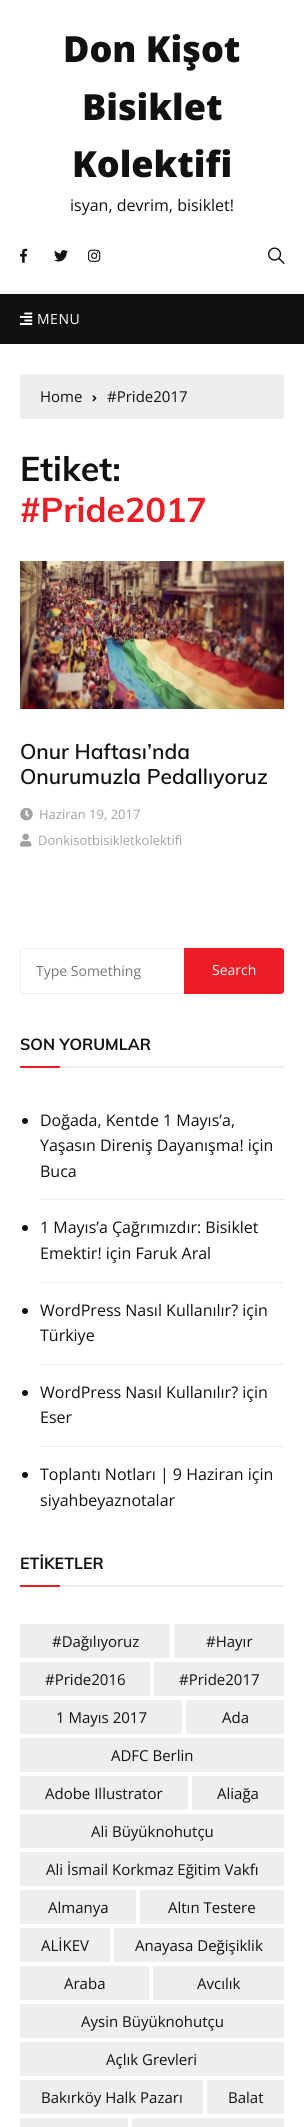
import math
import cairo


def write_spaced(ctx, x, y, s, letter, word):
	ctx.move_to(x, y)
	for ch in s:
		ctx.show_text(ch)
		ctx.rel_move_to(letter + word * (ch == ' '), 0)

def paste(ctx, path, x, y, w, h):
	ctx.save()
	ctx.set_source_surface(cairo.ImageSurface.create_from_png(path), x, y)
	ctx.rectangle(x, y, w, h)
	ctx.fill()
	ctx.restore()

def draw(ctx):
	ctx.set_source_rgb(1, 1, 1)
	ctx.paint()
	ctx.select_font_face('Open Sans ExtraBold')
	ctx.set_font_size(36)
	ctx.set_source_rgb(0.067, 0.067, 0.067)
	for x, y, s in [
		(63, 62, 'Don Kişot'),
		(82, 120, 'Bisiklet'),
		(72, 177, 'Kolektifi'),
	]:
		ctx.move_to(x, y)
		ctx.show_text(s)
	ctx.select_font_face('Open Sans')
	ctx.set_font_size(16)
	ctx.move_to(70, 211)
	ctx.show_text('isyan, devrim, bisiklet!')
	paste(ctx, 'media/1.png', 20, 248, 8, 15)
	paste(ctx, 'media/2.png', 54, 250, 14, 12)
	paste(ctx, 'media/3.png', 88, 249, 13, 13)
	paste(ctx, 'media/4.png', 268, 247, 17, 17)
	ctx.rectangle(0, 294, 304, 50)
	ctx.fill()
	paste(ctx, 'media/5.png', 20, 312, 13, 13)
	ctx.set_font_size(14)
	ctx.set_source_rgb(1, 1, 1)
	write_spaced(ctx, 37, 324, 'MENU', 0.5, 0)
	ctx.set_source_rgb(0.933, 0.933, 0.933)
	ctx.rectangle(20, 374, 264, 45)
	ctx.fill()
	ctx.set_font_size(15)
	ctx.set_source_rgb(0.067, 0.067, 0.067)
	ctx.move_to(40, 402)
	ctx.show_text('Home')
	paste(ctx, 'media/6.png', 92, 395, 5, 7)
	ctx.move_to(107, 402)
	ctx.show_text('#Pride2017')
	ctx.select_font_face('Muli', cairo.FONT_SLANT_NORMAL, cairo.FONT_WEIGHT_BOLD)
	ctx.set_font_size(34)
	ctx.move_to(20, 481)
	ctx.show_text('Etiket:')
	ctx.set_source_rgb(0.929, 0.114, 0.145)
	ctx.move_to(20, 522)
	ctx.show_text('#Pride2017')
	paste(ctx, 'media/7.png', 20, 561, 264, 148)
	ctx.select_font_face('Muli SemiBold')
	ctx.set_font_size(21)
	ctx.set_source_rgb(0.067, 0.067, 0.067)
	ctx.move_to(20, 759)
	ctx.show_text('Onur Haftası’nda')
	ctx.move_to(20, 784)
	ctx.show_text('Onurumuzla Pedallıyoruz')
	paste(ctx, 'media/8.png', 20, 807, 13, 14)
	ctx.select_font_face('Open Sans')
	ctx.set_font_size(13)
	ctx.set_source_rgb(0.635, 0.635, 0.635)
	ctx.move_to(39, 819)
	ctx.show_text('Haziran 19, 2017')
	paste(ctx, 'media/9.png', 20, 833, 12, 14)
	ctx.move_to(38, 845)
	ctx.show_text('Donkisotbisikletkolektifi')
	ctx.set_source_rgb(0.933, 0.933, 0.933)
	ctx.set_fill_rule(cairo.FILL_RULE_EVEN_ODD)
	ctx.new_path()
	ctx.move_to(23, 948)
	ctx.line_to(184, 948)
	ctx.line_to(184, 994)
	ctx.line_to(23, 994)
	ctx.curve_to(21, 994, 20, 993, 20, 991)
	ctx.line_to(20, 951)
	ctx.curve_to(20, 949, 21, 948, 23, 948)
	ctx.close_path()
	ctx.move_to(23, 949)
	ctx.line_to(184, 949)
	ctx.line_to(184, 993)
	ctx.line_to(23, 993)
	ctx.curve_to(22, 993, 21, 992, 21, 991)
	ctx.line_to(21, 951)
	ctx.curve_to(21, 950, 22, 949, 23, 949)
	ctx.close_path()
	ctx.fill()
	ctx.set_font_size(14)
	ctx.set_source_rgb(0.459, 0.459, 0.459)
	ctx.move_to(36, 976)
	ctx.show_text('Type Something')
	ctx.set_source_rgb(0.929, 0.114, 0.145)
	ctx.new_path()
	ctx.move_to(184, 948)
	ctx.line_to(281, 948)
	ctx.curve_to(282.5, 948, 284, 949.5, 284, 951)
	ctx.line_to(284, 991)
	ctx.curve_to(284, 992.5, 282.5, 994, 281, 994)
	ctx.line_to(184, 994)
	ctx.close_path()
	ctx.fill()
	ctx.set_source_rgb(1, 1, 1)
	ctx.move_to(212, 975)
	ctx.show_text('Search')
	ctx.set_source_rgb(0.933, 0.933, 0.933)
	ctx.rectangle(60, 1066, 224, 2)
	ctx.fill()
	ctx.select_font_face('Muli', cairo.FONT_SLANT_NORMAL, cairo.FONT_WEIGHT_BOLD)
	ctx.set_font_size(16)
	ctx.set_source_rgb(0.067, 0.067, 0.067)
	ctx.move_to(20, 1050)
	ctx.show_text('SON YORUMLAR')
	ctx.set_source_rgb(0.929, 0.114, 0.145)
	ctx.rectangle(20, 1066, 40, 2)
	ctx.fill()
	ctx.set_source_rgb(0.933, 0.933, 0.933)
	ctx.rectangle(40, 1199, 244, 1)
	ctx.fill()
	ctx.set_source_rgb(0.067, 0.067, 0.067)
	ctx.arc(25, 1121, 3, 0, 2 * math.pi)
	ctx.fill()
	ctx.select_font_face('Open Sans')
	for x, y, s in [
		(40, 1126, 'Doğada, Kentde 1 Mayıs’a,'),
		(40, 1151, 'Yaşasın Direniş Dayanışma! için'),
		(40, 1177, 'Buca'),
	]:
		ctx.move_to(x, y)
		ctx.show_text(s)
	ctx.set_source_rgb(0.933, 0.933, 0.933)
	ctx.rectangle(40, 1282, 244, 1)
	ctx.fill()
	ctx.set_source_rgb(0.067, 0.067, 0.067)
	ctx.arc(25, 1228, 3, 0, 2 * math.pi)
	ctx.fill()
	ctx.move_to(40, 1233)
	ctx.show_text('1 Mayıs’a Çağrımızdır: Bisiklet')
	ctx.move_to(40, 1259)
	ctx.show_text('Emektir! için Faruk Aral')
	ctx.set_source_rgb(0.933, 0.933, 0.933)
	ctx.rectangle(40, 1364, 244, 1)
	ctx.fill()
	ctx.set_source_rgb(0.067, 0.067, 0.067)
	ctx.arc(25, 1311, 3, 0, 2 * math.pi)
	ctx.fill()
	ctx.move_to(40, 1316)
	ctx.show_text('WordPress Nasıl Kullanılır? için')
	ctx.move_to(40, 1341)
	ctx.show_text('Türkiye')
	ctx.set_source_rgb(0.933, 0.933, 0.933)
	ctx.rectangle(40, 1446, 244, 1)
	ctx.fill()
	ctx.set_source_rgb(0.067, 0.067, 0.067)
	ctx.arc(25, 1393, 3, 0, 2 * math.pi)
	ctx.fill()
	ctx.move_to(40, 1398)
	ctx.show_text('WordPress Nasıl Kullanılır? için')
	ctx.move_to(40, 1423)
	ctx.show_text('Eser')
	ctx.new_path()
	ctx.arc(25, 1475, 3, 0, 2 * math.pi)
	ctx.fill()
	ctx.move_to(40, 1480)
	ctx.show_text('Toplantı Notları | 9 Haziran için')
	ctx.move_to(40, 1506)
	ctx.show_text('siyahbeyaznotalar')
	ctx.set_source_rgb(0.933, 0.933, 0.933)
	ctx.rectangle(60, 1585, 224, 2)
	ctx.fill()
	ctx.select_font_face('Muli', cairo.FONT_SLANT_NORMAL, cairo.FONT_WEIGHT_BOLD)
	ctx.set_source_rgb(0.067, 0.067, 0.067)
	ctx.move_to(20, 1569)
	ctx.show_text('ETİKETLER')
	ctx.set_source_rgb(0.929, 0.114, 0.145)
	ctx.rectangle(20, 1585, 40, 2)
	ctx.fill()
	ctx.set_source_rgb(0.933, 0.933, 0.933)
	ctx.rectangle(20, 1624, 150, 34)
	ctx.fill()
	ctx.select_font_face('Open Sans')
	ctx.set_font_size(15)
	ctx.set_source_rgb(0.067, 0.067, 0.067)
	ctx.move_to(52, 1647)
	ctx.show_text('#Dağılıyoruz')
	ctx.set_source_rgb(0.933, 0.933, 0.933)
	ctx.rectangle(174, 1624, 110, 34)
	ctx.fill()
	ctx.set_source_rgb(0.067, 0.067, 0.067)
	ctx.move_to(206, 1647)
	ctx.show_text('#Hayır')
	ctx.set_source_rgb(0.933, 0.933, 0.933)
	ctx.rectangle(20, 1662, 130, 34)
	ctx.fill()
	ctx.set_source_rgb(0.067, 0.067, 0.067)
	ctx.move_to(45, 1685)
	ctx.show_text('#Pride2016')
	ctx.set_source_rgb(0.933, 0.933, 0.933)
	ctx.rectangle(154, 1662, 130, 34)
	ctx.fill()
	ctx.set_source_rgb(0.067, 0.067, 0.067)
	ctx.move_to(179, 1685)
	ctx.show_text('#Pride2017')
	ctx.set_source_rgb(0.933, 0.933, 0.933)
	ctx.rectangle(20, 1700, 162, 34)
	ctx.fill()
	ctx.set_source_rgb(0.067, 0.067, 0.067)
	ctx.move_to(56, 1723)
	ctx.show_text('1 Mayıs 2017')
	ctx.set_source_rgb(0.933, 0.933, 0.933)
	ctx.rectangle(186, 1700, 98, 34)
	ctx.fill()
	ctx.set_source_rgb(0.067, 0.067, 0.067)
	ctx.move_to(222, 1723)
	ctx.show_text('Ada')
	ctx.set_source_rgb(0.933, 0.933, 0.933)
	ctx.rectangle(20, 1738, 264, 34)
	ctx.fill()
	ctx.set_source_rgb(0.067, 0.067, 0.067)
	ctx.move_to(111, 1761)
	ctx.show_text('ADFC Berlin')
	ctx.set_source_rgb(0.933, 0.933, 0.933)
	ctx.rectangle(20, 1776, 168, 34)
	ctx.fill()
	ctx.set_source_rgb(0.067, 0.067, 0.067)
	ctx.move_to(45, 1799)
	ctx.show_text('Adobe Illustrator')
	ctx.set_source_rgb(0.933, 0.933, 0.933)
	ctx.rectangle(192, 1776, 92, 34)
	ctx.fill()
	ctx.set_source_rgb(0.067, 0.067, 0.067)
	ctx.move_to(217, 1799)
	ctx.show_text('Aliağa')
	ctx.set_source_rgb(0.933, 0.933, 0.933)
	ctx.rectangle(20, 1814, 264, 34)
	ctx.fill()
	ctx.set_source_rgb(0.067, 0.067, 0.067)
	ctx.move_to(91, 1837)
	ctx.show_text('Ali Büyüknohutçu')
	ctx.set_source_rgb(0.933, 0.933, 0.933)
	ctx.rectangle(20, 1852, 264, 34)
	ctx.fill()
	ctx.set_source_rgb(0.067, 0.067, 0.067)
	ctx.move_to(46, 1875)
	ctx.show_text('Ali İsmail Korkmaz Eğitim Vakfı')
	ctx.set_source_rgb(0.933, 0.933, 0.933)
	ctx.rectangle(20, 1890, 116, 34)
	ctx.fill()
	ctx.set_source_rgb(0.067, 0.067, 0.067)
	ctx.move_to(48, 1913)
	ctx.show_text('Almanya')
	ctx.set_source_rgb(0.933, 0.933, 0.933)
	ctx.rectangle(140, 1890, 144, 34)
	ctx.fill()
	ctx.set_source_rgb(0.067, 0.067, 0.067)
	ctx.move_to(168, 1913)
	ctx.show_text('Altın Testere')
	ctx.set_source_rgb(0.933, 0.933, 0.933)
	ctx.rectangle(20, 1928, 90, 34)
	ctx.fill()
	ctx.set_source_rgb(0.067, 0.067, 0.067)
	ctx.move_to(41, 1951)
	ctx.show_text('ALİKEV')
	ctx.set_source_rgb(0.933, 0.933, 0.933)
	ctx.rectangle(114, 1928, 170, 34)
	ctx.fill()
	ctx.set_source_rgb(0.067, 0.067, 0.067)
	ctx.move_to(135, 1951)
	ctx.show_text('Anayasa Değişiklik')
	ctx.set_source_rgb(0.933, 0.933, 0.933)
	ctx.rectangle(20, 1966, 129, 34)
	ctx.fill()
	ctx.set_source_rgb(0.067, 0.067, 0.067)
	ctx.move_to(64, 1989)
	ctx.show_text('Araba')
	ctx.set_source_rgb(0.933, 0.933, 0.933)
	ctx.rectangle(153, 1966, 131, 34)
	ctx.fill()
	ctx.set_source_rgb(0.067, 0.067, 0.067)
	ctx.move_to(197, 1989)
	ctx.show_text('Avcılık')
	ctx.set_source_rgb(0.933, 0.933, 0.933)
	ctx.rectangle(20, 2004, 264, 34)
	ctx.fill()
	ctx.set_source_rgb(0.067, 0.067, 0.067)
	ctx.move_to(81, 2027)
	ctx.show_text('Aysin Büyüknohutçu')
	ctx.set_source_rgb(0.933, 0.933, 0.933)
	ctx.rectangle(20, 2042, 264, 34)
	ctx.fill()
	ctx.set_source_rgb(0.067, 0.067, 0.067)
	ctx.move_to(106, 2065)
	ctx.show_text('Açlık Grevleri')
	ctx.set_source_rgb(0.933, 0.933, 0.933)
	ctx.rectangle(20, 2080, 183, 34)
	ctx.fill()
	ctx.set_source_rgb(0.067, 0.067, 0.067)
	ctx.move_to(41, 2103)
	ctx.show_text('Bakırköy Halk Pazarı')
	ctx.set_source_rgb(0.933, 0.933, 0.933)
	ctx.rectangle(207, 2080, 77, 34)
	ctx.fill()
	ctx.set_source_rgb(0.067, 0.067, 0.067)
	ctx.move_to(228, 2103)
	ctx.show_text('Balat')
	ctx.set_source_rgb(0.933, 0.933, 0.933)
	ctx.rectangle(20, 2118, 108, 9)
	ctx.fill()
	ctx.rectangle(132, 2118, 152, 9)
	ctx.fill()


surface = cairo.ImageSurface(cairo.FORMAT_RGB24, 304, 2127)
ctx = cairo.Context(surface)
options = cairo.FontOptions()
options.set_hint_metrics(cairo.HINT_METRICS_OFF)
options.set_hint_style(cairo.HINT_STYLE_NONE)
ctx.set_font_options(options)
ctx.set_miter_limit(4)
draw(ctx)
surface.write_to_png('image.png')
